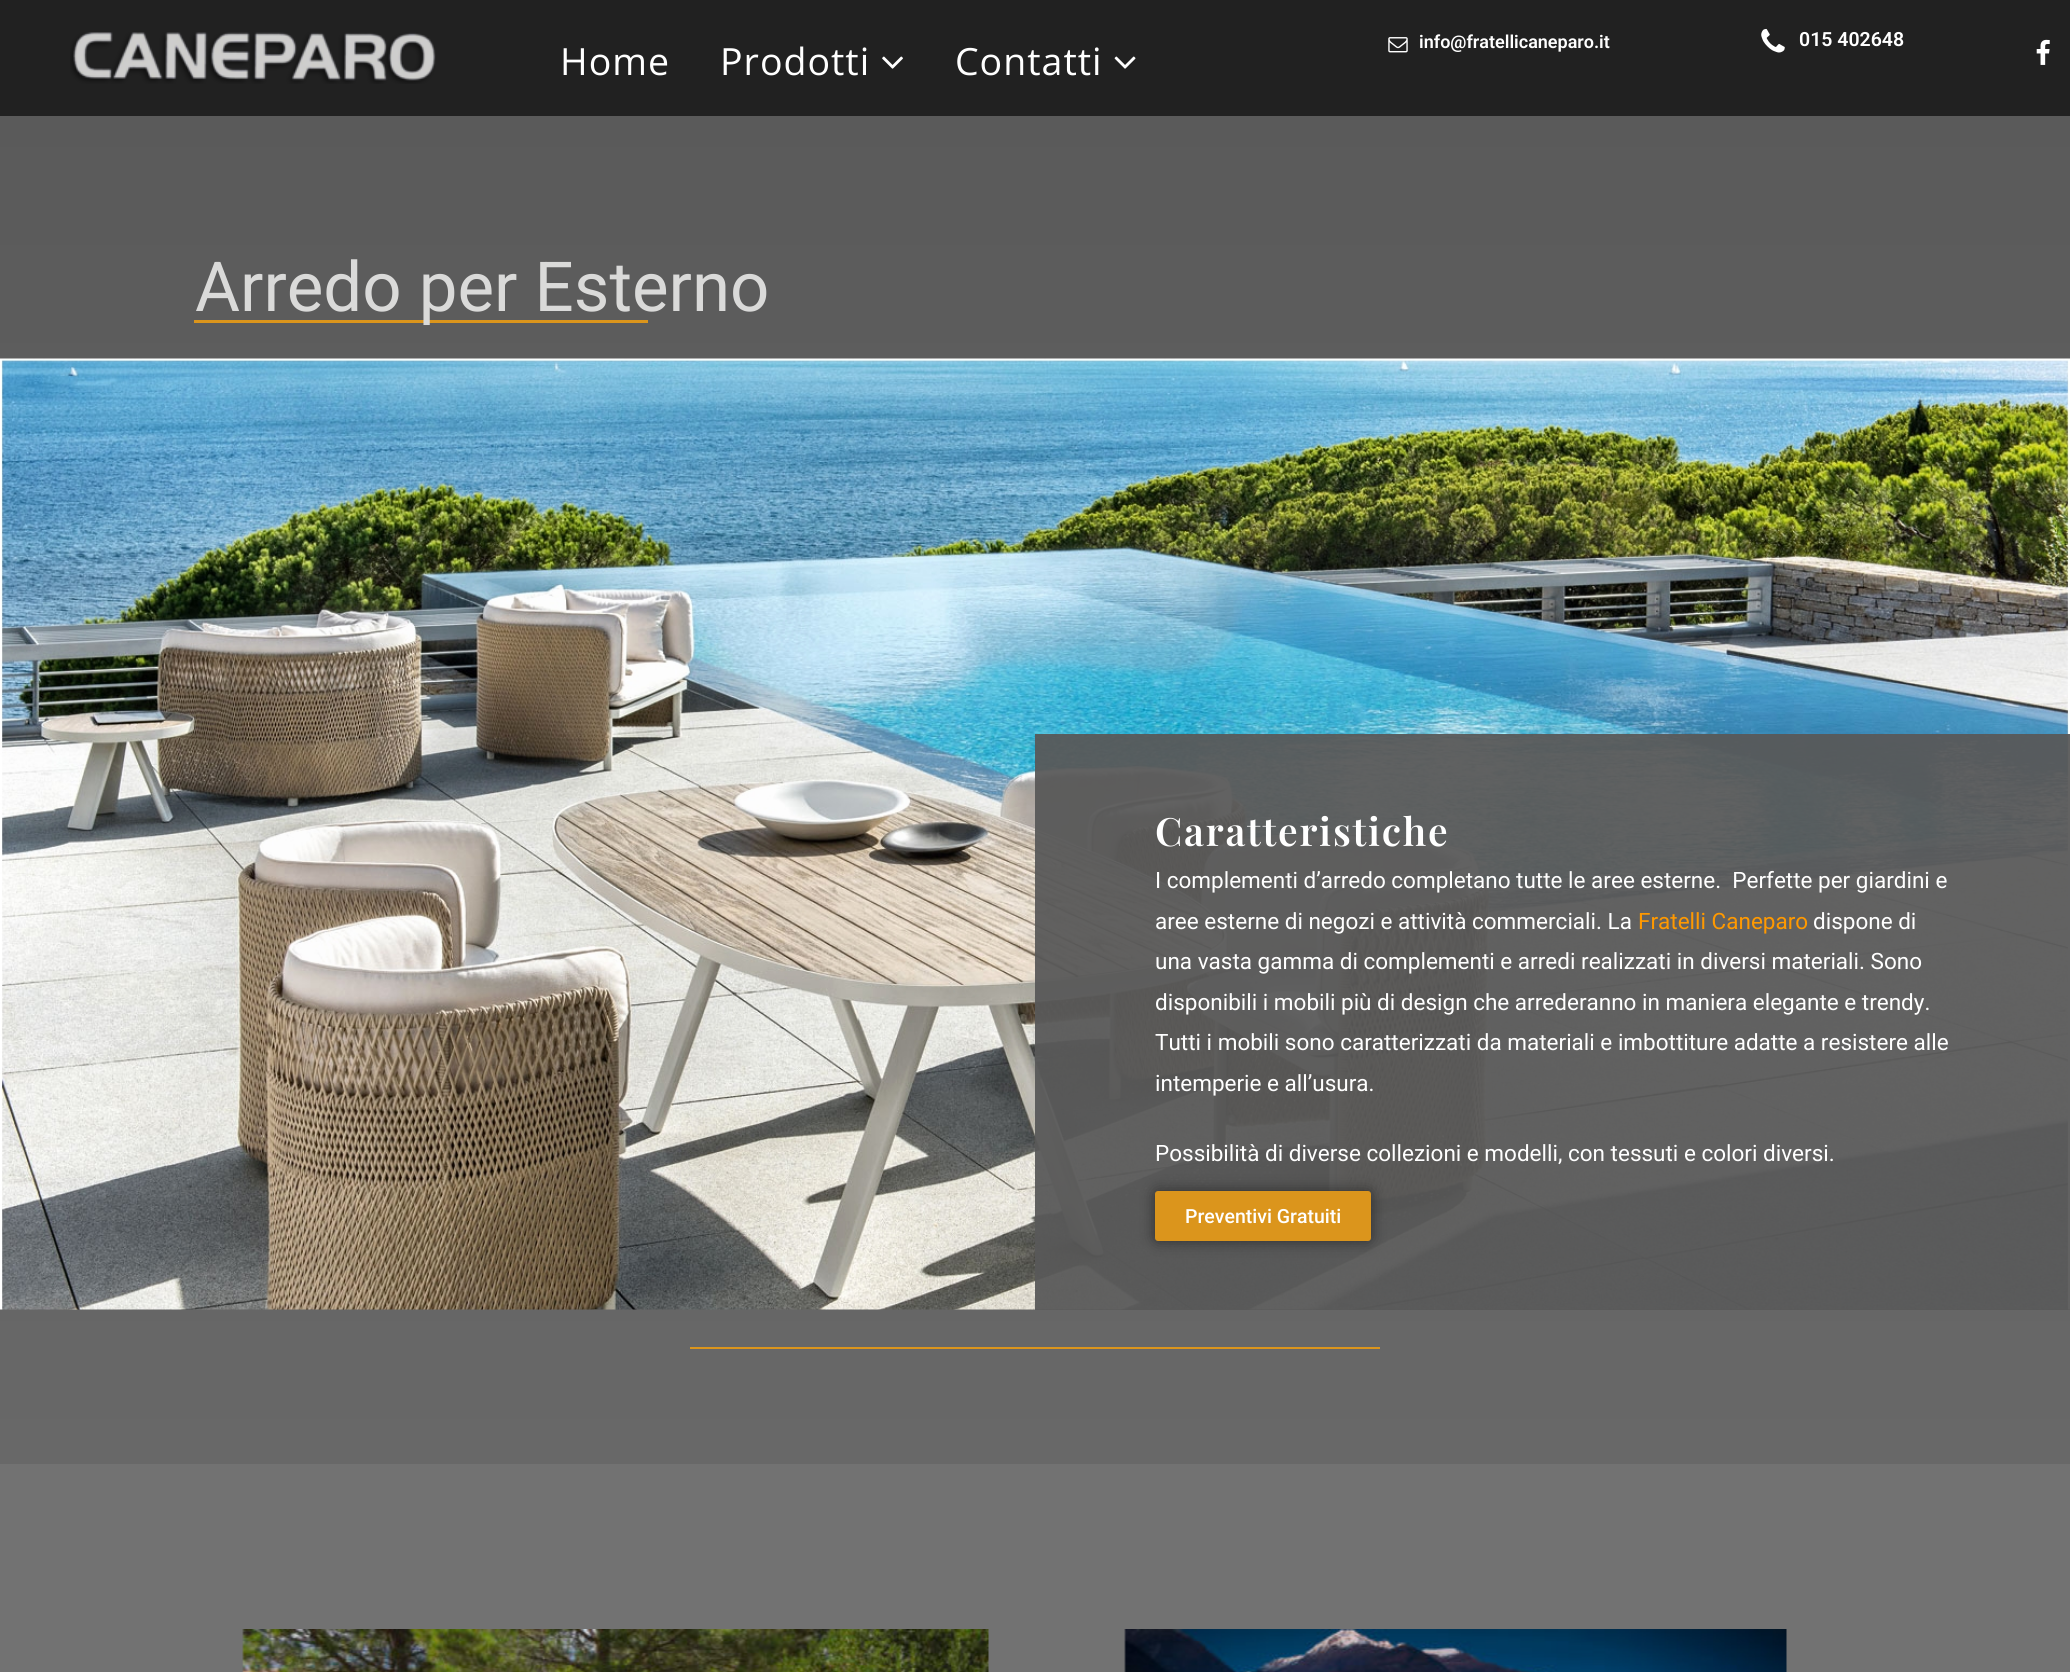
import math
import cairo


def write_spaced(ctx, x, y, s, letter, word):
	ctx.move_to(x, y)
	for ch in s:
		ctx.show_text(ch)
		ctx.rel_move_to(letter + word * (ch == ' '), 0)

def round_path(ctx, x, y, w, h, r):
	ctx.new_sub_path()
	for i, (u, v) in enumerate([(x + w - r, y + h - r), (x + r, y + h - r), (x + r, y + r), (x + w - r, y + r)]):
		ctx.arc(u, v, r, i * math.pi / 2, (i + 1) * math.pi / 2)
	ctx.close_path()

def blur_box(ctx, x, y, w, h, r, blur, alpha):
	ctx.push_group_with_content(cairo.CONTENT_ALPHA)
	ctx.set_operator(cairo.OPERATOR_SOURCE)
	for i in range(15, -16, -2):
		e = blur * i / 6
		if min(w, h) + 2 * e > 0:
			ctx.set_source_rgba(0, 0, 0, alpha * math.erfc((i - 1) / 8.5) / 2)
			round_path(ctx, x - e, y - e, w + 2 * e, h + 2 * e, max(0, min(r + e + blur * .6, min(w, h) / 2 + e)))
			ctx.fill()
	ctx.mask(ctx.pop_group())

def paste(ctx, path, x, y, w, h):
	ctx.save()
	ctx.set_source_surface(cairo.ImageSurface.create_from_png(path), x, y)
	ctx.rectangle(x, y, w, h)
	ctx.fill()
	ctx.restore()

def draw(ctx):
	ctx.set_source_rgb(1, 1, 1)
	ctx.paint()
	gradient = cairo.LinearGradient(1035, 0, 1035, 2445)
	gradient.add_color_stop_rgba(0, 0.349, 0.349, 0.349, 1)
	gradient.add_color_stop_rgba(1, 0.447, 0.447, 0.447, 1)
	ctx.set_source(gradient)
	ctx.rectangle(0, 116, 2070, 1348)
	ctx.fill()
	ctx.set_source_rgb(0.129, 0.129, 0.129)
	ctx.rectangle(0, 0, 2070, 116)
	ctx.fill()
	paste(ctx, 'media/1.png', 70, 32, 366, 52)
	ctx.select_font_face('Open Sans')
	ctx.set_font_size(37.5)
	ctx.set_source_rgb(1, 1, 1)
	write_spaced(ctx, 560, 75, 'Home', 1, 0)
	write_spaced(ctx, 720, 75, 'Prodotti', 1, 0)
	paste(ctx, 'media/2.png', 882, 56, 21, 13)
	write_spaced(ctx, 955, 75, 'Contatti', 1, 0)
	paste(ctx, 'media/3.png', 1114, 56, 22, 13)
	paste(ctx, 'media/4.png', 1388, 37, 20, 16)
	ctx.select_font_face('Roboto SemiBold')
	ctx.set_font_size(18)
	ctx.move_to(1419, 48)
	ctx.show_text('info@fratellicaneparo.it')
	paste(ctx, 'media/5.png', 1761, 28, 24, 25)
	ctx.set_font_size(19.5)
	ctx.move_to(1799, 46)
	ctx.show_text('015 402648')
	paste(ctx, 'media/6.png', 2036, 39, 14, 26)
	ctx.set_source_rgb(0.859, 0.584, 0.11)
	ctx.rectangle(194, 320, 454, 3)
	ctx.fill()
	ctx.select_font_face('Roboto')
	ctx.set_font_size(69)
	ctx.set_source_rgb(0.855, 0.855, 0.851)
	ctx.move_to(195, 311)
	ctx.show_text('Arredo per Esterno')
	paste(ctx, 'media/7.png', 0, 358, 2070, 952)
	ctx.set_source_rgba(0.349, 0.345, 0.345, 0.94)
	ctx.rectangle(1035, 734, 1035, 576)
	ctx.fill()
	ctx.select_font_face('Playfair Display SemiBold')
	ctx.set_font_size(39)
	ctx.set_source_rgb(1, 1, 1)
	write_spaced(ctx, 1155, 846, 'Caratteristiche', 1.75, 0)
	ctx.select_font_face('Roboto')
	ctx.set_font_size(22.5)
	ctx.move_to(1155, 888)
	ctx.show_text('I complementi d’arredo completano tutte le aree esterne.  Perfette per giardini e')
	ctx.move_to(1155, 929)
	ctx.show_text('aree esterne di negozi e attività commerciali. La')
	ctx.set_source_rgb(1, 0.6, 0)
	ctx.move_to(1638, 929)
	ctx.show_text('Fratelli Caneparo')
	ctx.set_source_rgb(1, 1, 1)
	for x, y, s in [
		(1813, 929, 'dispone di'),
		(1155, 969, 'una vasta gamma di complementi e arredi realizzati in diversi materiali. Sono'),
		(1155, 1010, 'disponibili i mobili più di design che arrederanno in maniera elegante e trendy.'),
		(1155, 1050, 'Tutti i mobili sono caratterizzati da materiali e imbottiture adatte a resistere alle'),
		(1155, 1091, 'intemperie e all’usura.'),
		(1155, 1161, 'Possibilità di diverse collezioni e modelli, con tessuti e colori diversi.'),
	]:
		ctx.move_to(x, y)
		ctx.show_text(s)
	ctx.set_source_rgb(0, 0, 0)
	blur_box(ctx, 1155, 1191, 216, 50, 3, 7.5, 0.5)
	ctx.set_source_rgb(0.859, 0.584, 0.11)
	round_path(ctx, 1155, 1191, 216, 50, 3)
	ctx.fill()
	ctx.select_font_face('Roboto Medium')
	ctx.set_font_size(19.5)
	ctx.set_source_rgb(1, 1, 1)
	ctx.move_to(1185, 1223)
	ctx.show_text('Preventivi Gratuiti')
	ctx.set_source_rgb(0.859, 0.584, 0.11)
	ctx.rectangle(690, 1347, 690, 2)
	ctx.fill()
	ctx.set_source_rgb(0.447, 0.447, 0.447)
	ctx.rectangle(0, 1464, 2070, 208)
	ctx.fill()
	paste(ctx, 'media/8.png', 242, 1629, 747, 43)
	paste(ctx, 'media/9.png', 1124, 1629, 663, 43)


surface = cairo.ImageSurface(cairo.FORMAT_RGB24, 2070, 1672)
ctx = cairo.Context(surface)
options = cairo.FontOptions()
options.set_hint_metrics(cairo.HINT_METRICS_OFF)
options.set_hint_style(cairo.HINT_STYLE_NONE)
ctx.set_font_options(options)
ctx.set_miter_limit(4)
draw(ctx)
surface.write_to_png('image.png')
